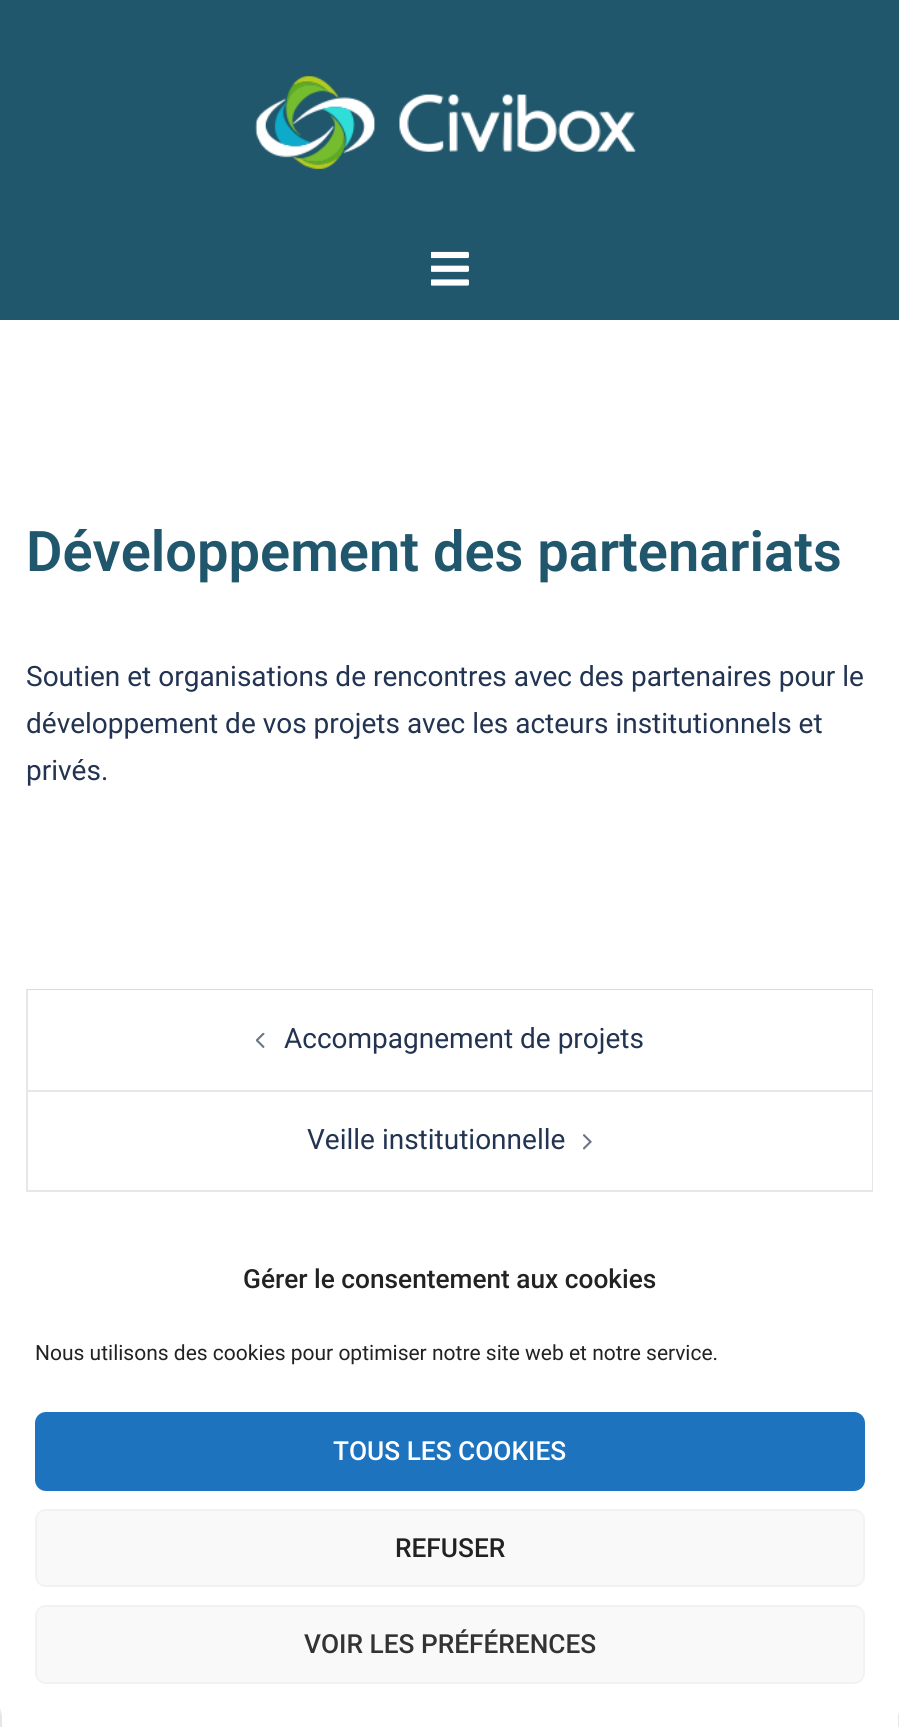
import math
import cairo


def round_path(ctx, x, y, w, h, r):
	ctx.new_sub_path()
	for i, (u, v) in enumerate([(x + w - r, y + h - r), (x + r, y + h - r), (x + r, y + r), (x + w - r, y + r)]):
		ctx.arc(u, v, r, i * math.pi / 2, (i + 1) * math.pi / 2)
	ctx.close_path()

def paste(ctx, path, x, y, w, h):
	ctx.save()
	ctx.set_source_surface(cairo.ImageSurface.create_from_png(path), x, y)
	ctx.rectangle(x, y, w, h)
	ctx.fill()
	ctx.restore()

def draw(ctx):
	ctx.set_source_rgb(1, 1, 1)
	ctx.paint()
	ctx.set_source_rgb(0.125, 0.341, 0.424)
	ctx.rectangle(0, 0, 899, 320)
	ctx.fill()
	paste(ctx, 'media/1.png', 255, 76, 381, 94)
	paste(ctx, 'media/2.png', 431, 251, 38, 35)
	ctx.select_font_face('Roboto SemiBold')
	ctx.set_font_size(56)
	ctx.move_to(26, 571)
	ctx.show_text('Développement des partenariats')
	ctx.select_font_face('Roboto')
	ctx.set_font_size(28)
	ctx.set_source_rgb(0.137, 0.204, 0.322)
	for x, y, s in [
		(26, 686, 'Soutien et organisations de rencontres avec des partenaires pour le'),
		(26, 733, 'développement de vos projets avec les acteurs institutionnels et'),
		(26, 780, 'privés.'),
	]:
		ctx.move_to(x, y)
		ctx.show_text(s)
	ctx.set_source_rgb(0.859, 0.859, 0.859)
	ctx.new_path()
	ctx.move_to(26, 989)
	ctx.line_to(873, 989)
	ctx.line_to(872, 990)
	ctx.line_to(28, 990)
	ctx.close_path()
	ctx.fill()
	ctx.set_source_rgba(0, 0.063, 0.18, 0.1)
	ctx.new_path()
	ctx.move_to(873, 989)
	ctx.line_to(873, 1192)
	ctx.line_to(872, 1190)
	ctx.line_to(872, 990)
	ctx.close_path()
	ctx.fill()
	ctx.new_path()
	ctx.move_to(873, 1192)
	ctx.line_to(26, 1192)
	ctx.line_to(28, 1190)
	ctx.line_to(872, 1190)
	ctx.close_path()
	ctx.fill()
	ctx.new_path()
	ctx.move_to(26, 1192)
	ctx.line_to(26, 989)
	ctx.line_to(28, 990)
	ctx.line_to(28, 1190)
	ctx.close_path()
	ctx.fill()
	ctx.set_source_rgb(0.902, 0.906, 0.918)
	ctx.rectangle(28, 1090, 844, 2)
	ctx.fill()
	paste(ctx, 'media/3.png', 256, 1033, 9, 15)
	ctx.set_source_rgb(0.137, 0.204, 0.322)
	ctx.move_to(284, 1048)
	ctx.show_text('Accompagnement de projets')
	ctx.move_to(307, 1149)
	ctx.show_text('Veille institutionnelle')
	paste(ctx, 'media/4.png', 583, 1134, 9, 16)
	ctx.rectangle(1, 1298, 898, 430)
	ctx.set_source_rgb(0.902, 0.902, 0.902)
	ctx.stroke()
	ctx.set_source_rgb(1, 1, 1)
	round_path(ctx, 0, 1232, 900, 495, 21)
	ctx.fill()
	ctx.select_font_face('Roboto Medium')
	ctx.set_font_size(26.25)
	ctx.set_source_rgb(0.133, 0.133, 0.133)
	ctx.move_to(243, 1288)
	ctx.show_text('Gérer le consentement aux cookies')
	ctx.select_font_face('Roboto')
	ctx.set_font_size(21)
	ctx.move_to(35, 1360)
	ctx.show_text('Nous utilisons des cookies pour optimiser notre site web et notre service.')
	ctx.set_source_rgb(0.118, 0.451, 0.745)
	round_path(ctx, 36, 1413, 828, 77, 10)
	ctx.fill_preserve()
	ctx.stroke()
	ctx.select_font_face('Roboto Medium')
	ctx.set_font_size(26.25)
	ctx.set_source_rgb(1, 1, 1)
	ctx.move_to(333, 1460)
	ctx.show_text('TOUS LES COOKIES')
	ctx.set_source_rgb(0.976, 0.976, 0.976)
	round_path(ctx, 36, 1510, 828, 76, 10)
	ctx.fill_preserve()
	ctx.set_source_rgb(0.949, 0.949, 0.949)
	ctx.stroke()
	ctx.set_source_rgb(0.133, 0.133, 0.133)
	ctx.move_to(395, 1557)
	ctx.show_text('REFUSER')
	ctx.set_source_rgb(0.976, 0.976, 0.976)
	round_path(ctx, 36, 1606, 828, 77, 10)
	ctx.fill_preserve()
	ctx.set_source_rgb(0.949, 0.949, 0.949)
	ctx.stroke()
	ctx.set_source_rgb(0.2, 0.2, 0.2)
	ctx.move_to(304, 1653)
	ctx.show_text('VOIR LES PRÉFÉRENCES')


surface = cairo.ImageSurface(cairo.FORMAT_RGB24, 899, 1727)
ctx = cairo.Context(surface)
options = cairo.FontOptions()
options.set_hint_metrics(cairo.HINT_METRICS_OFF)
options.set_hint_style(cairo.HINT_STYLE_NONE)
ctx.set_font_options(options)
ctx.set_miter_limit(4)
draw(ctx)
surface.write_to_png('image.png')
